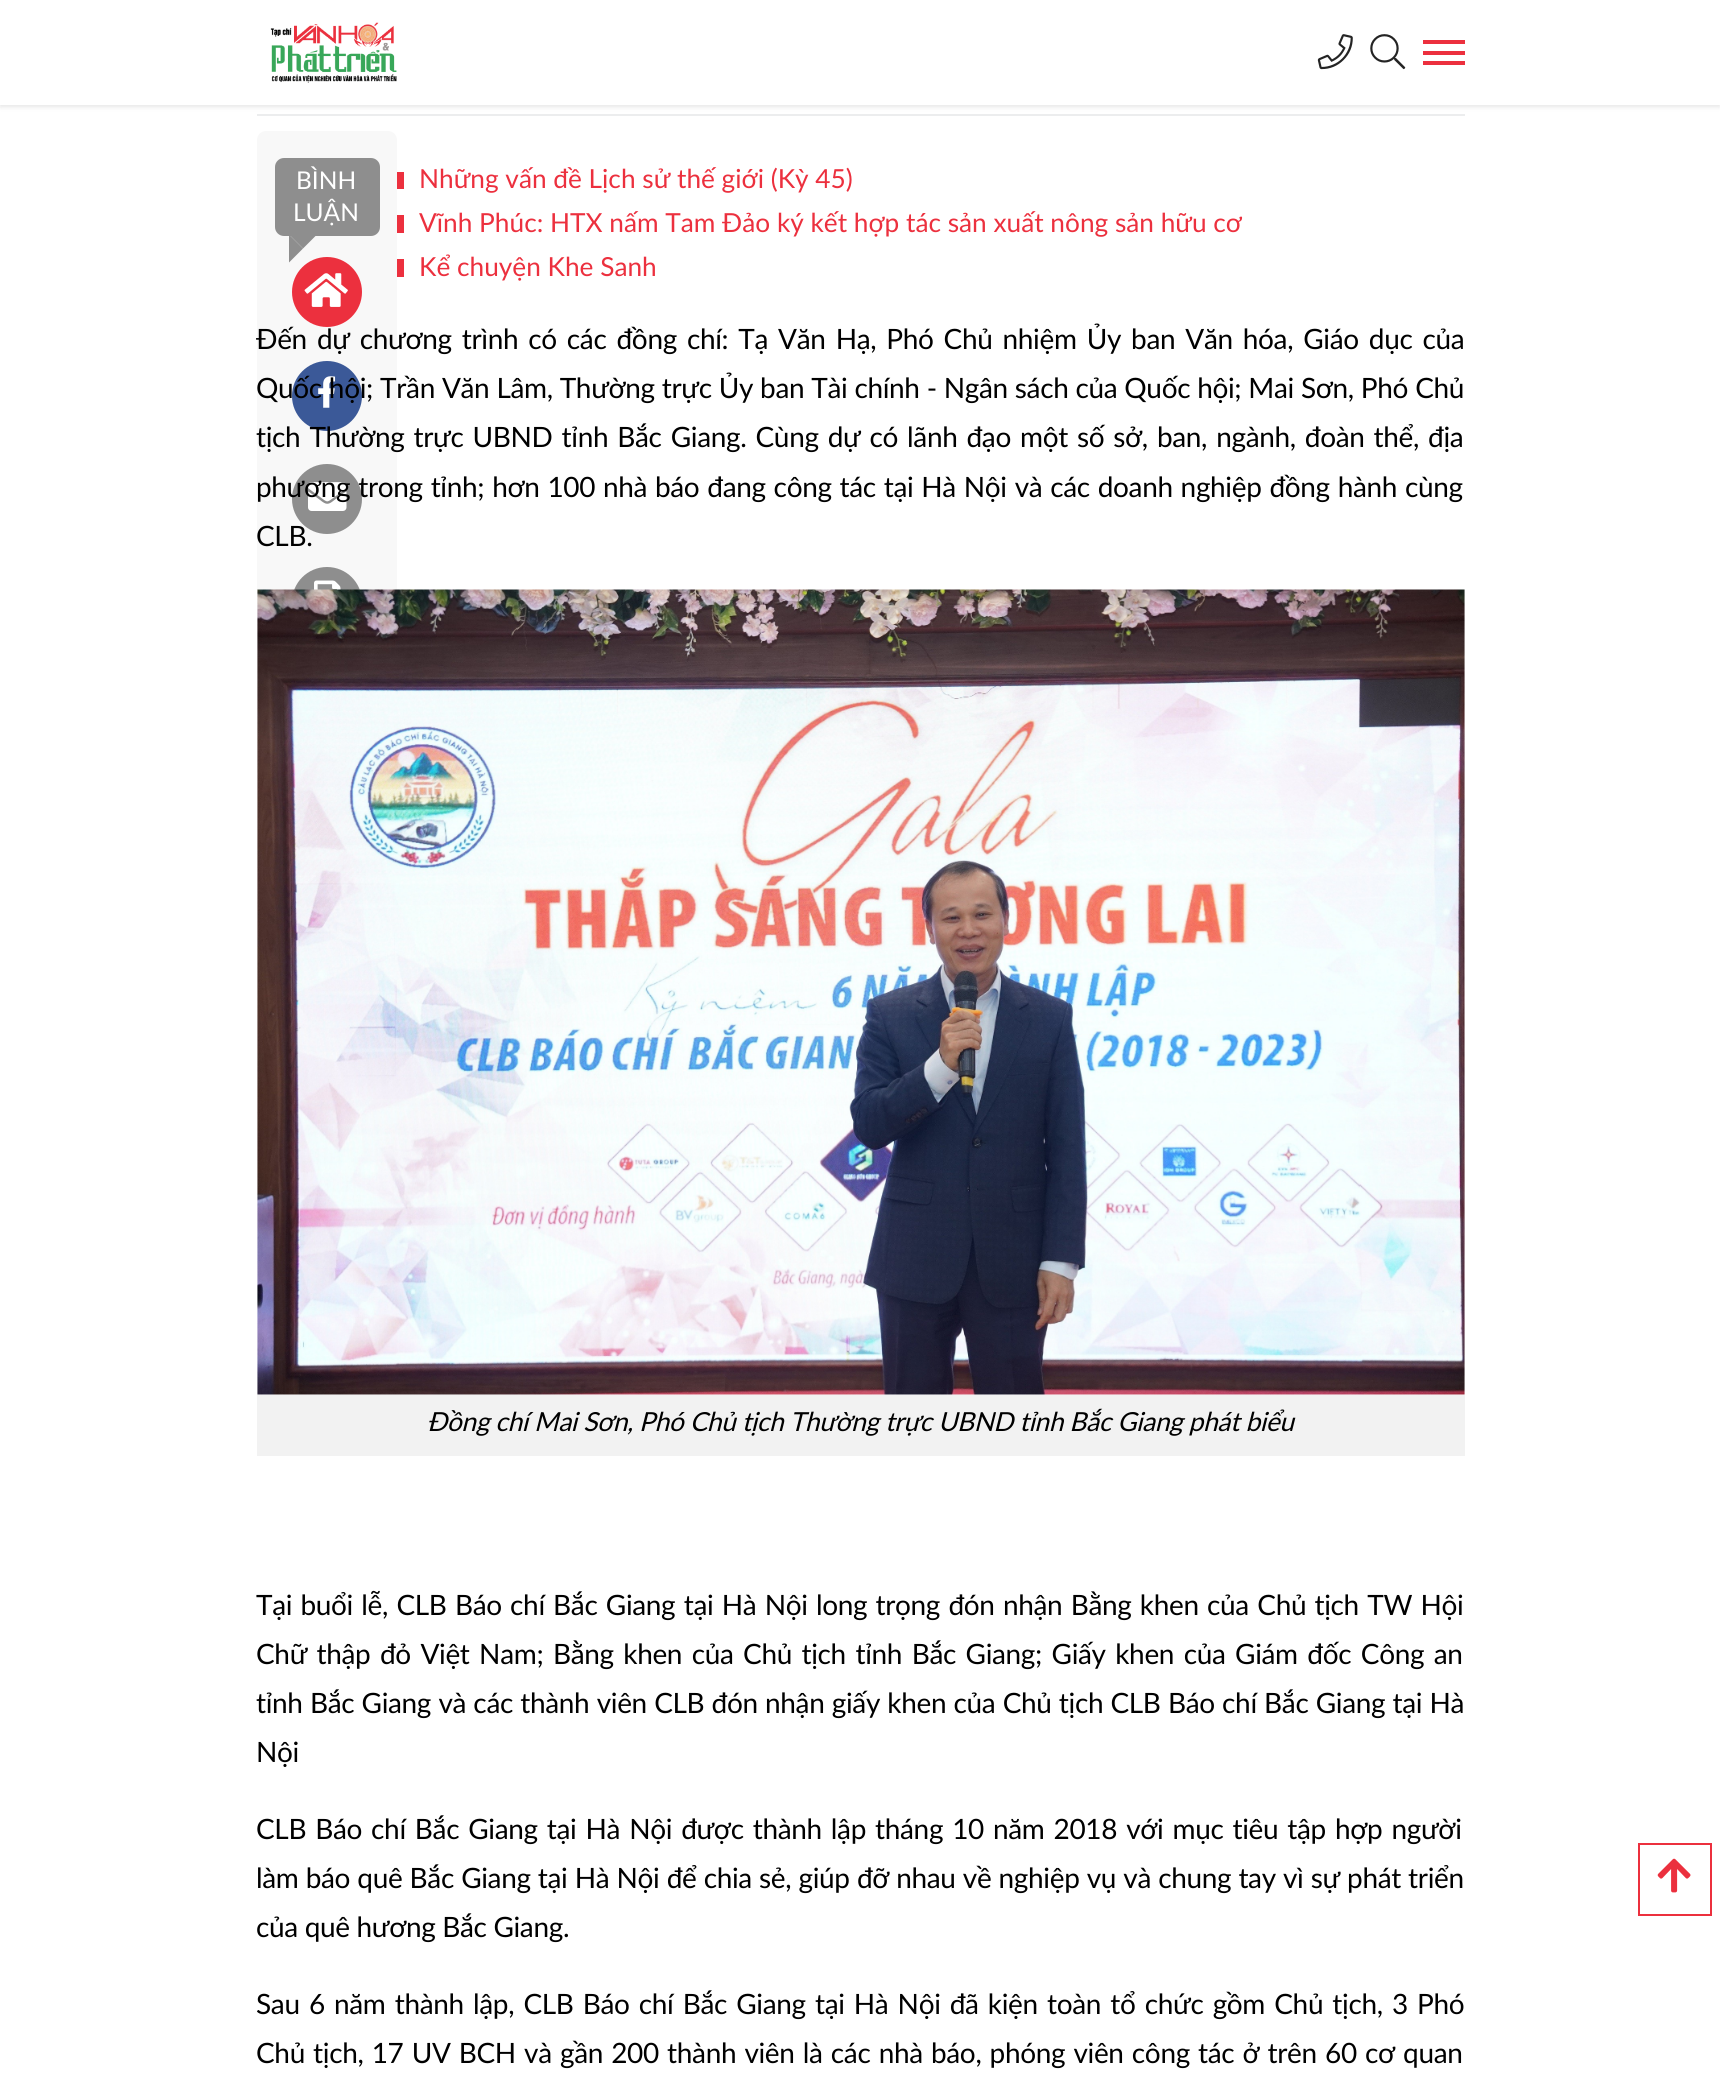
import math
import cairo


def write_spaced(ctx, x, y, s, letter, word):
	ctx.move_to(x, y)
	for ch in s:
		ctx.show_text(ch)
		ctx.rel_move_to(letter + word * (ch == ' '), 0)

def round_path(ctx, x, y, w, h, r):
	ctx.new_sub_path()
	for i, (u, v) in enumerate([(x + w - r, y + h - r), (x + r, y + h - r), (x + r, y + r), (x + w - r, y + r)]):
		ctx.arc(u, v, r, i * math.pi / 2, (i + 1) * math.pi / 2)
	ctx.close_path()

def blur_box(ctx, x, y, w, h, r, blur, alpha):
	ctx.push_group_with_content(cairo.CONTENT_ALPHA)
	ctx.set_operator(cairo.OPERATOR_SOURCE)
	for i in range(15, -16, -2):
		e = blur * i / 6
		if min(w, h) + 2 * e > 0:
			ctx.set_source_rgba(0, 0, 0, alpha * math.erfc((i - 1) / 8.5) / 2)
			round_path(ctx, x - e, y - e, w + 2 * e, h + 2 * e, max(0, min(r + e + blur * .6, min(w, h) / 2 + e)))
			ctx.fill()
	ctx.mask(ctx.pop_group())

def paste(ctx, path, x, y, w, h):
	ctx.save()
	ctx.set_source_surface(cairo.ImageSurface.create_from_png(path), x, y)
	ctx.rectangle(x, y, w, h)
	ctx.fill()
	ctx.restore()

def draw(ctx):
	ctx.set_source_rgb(1, 1, 1)
	ctx.paint()
	ctx.set_source_rgb(0.925, 0.929, 0.933)
	ctx.rectangle(257, 114, 1208, 2)
	ctx.fill()
	ctx.set_source_rgb(0, 0, 0)
	blur_box(ctx, 0, 2, 1720, 105, 0, 2.5, 0.1)
	ctx.set_source_rgb(1, 1, 1)
	ctx.rectangle(0, 0, 1720, 105)
	ctx.fill()
	paste(ctx, 'media/1.png', 270, 22, 127, 61)
	paste(ctx, 'media/2.png', 1317, 34, 36, 36)
	paste(ctx, 'media/3.png', 1370, 34, 36, 36)
	ctx.set_source_rgb(0.922, 0.188, 0.243)
	ctx.rectangle(1423, 51, 42, 4)
	ctx.rectangle(1423, 40, 42, 4)
	ctx.rectangle(1423, 61, 42, 4)
	ctx.fill()
	ctx.set_source_rgb(0.969, 0.969, 0.969)
	round_path(ctx, 257, 131, 140, 648, 9)
	ctx.fill()
	ctx.set_source_rgb(0.557, 0.557, 0.557)
	round_path(ctx, 275, 158, 105, 78, 9)
	ctx.fill()
	ctx.select_font_face('Lato')
	ctx.set_font_size(24.5)
	ctx.set_source_rgb(1, 1, 1)
	ctx.move_to(296, 189)
	ctx.show_text('BÌNH')
	ctx.move_to(293, 221)
	ctx.show_text('LUẬN')
	ctx.set_source_rgb(0.557, 0.557, 0.557)
	ctx.new_path()
	ctx.move_to(289, 234.5)
	ctx.line_to(317, 234.5)
	ctx.line_to(303, 248.5)
	ctx.close_path()
	ctx.fill()
	ctx.set_source_rgb(0.922, 0.188, 0.243)
	ctx.arc(327, 292, 35, 0, 2 * math.pi)
	ctx.fill()
	ctx.set_source_rgb(0.557, 0.557, 0.557)
	ctx.new_path()
	ctx.move_to(289, 262.5)
	ctx.line_to(289, 234.5)
	ctx.line_to(303, 248.5)
	ctx.close_path()
	ctx.fill()
	paste(ctx, 'media/4.png', 304, 273, 44, 34)
	ctx.set_source_rgb(0.231, 0.349, 0.596)
	ctx.arc(327, 396, 35, 0, 2 * math.pi)
	ctx.fill()
	paste(ctx, 'media/5.png', 318, 376, 18, 32)
	ctx.set_source_rgb(0.557, 0.557, 0.557)
	ctx.arc(327, 499, 35, 0, 2 * math.pi)
	ctx.fill()
	paste(ctx, 'media/6.png', 308, 482, 39, 29)
	ctx.arc(327, 602, 35, 0, 2 * math.pi)
	ctx.fill()
	paste(ctx, 'media/7.png', 314, 580, 27, 10)
	ctx.set_source_rgb(0.922, 0.188, 0.243)
	ctx.rectangle(397, 172, 7, 17)
	ctx.fill()
	ctx.set_font_size(26.25)
	ctx.move_to(419, 188)
	ctx.show_text('Những vấn đề Lịch sử thế giới (Kỳ 45)')
	ctx.rectangle(397, 215, 7, 18)
	ctx.fill()
	ctx.move_to(419, 232)
	ctx.show_text('Vĩnh Phúc: HTX nấm Tam Đảo ký kết hợp tác sản xuất nông sản hữu cơ')
	ctx.rectangle(397, 259, 7, 18)
	ctx.fill()
	ctx.move_to(419, 276)
	ctx.show_text('Kể chuyện Khe Sanh')
	ctx.set_font_size(28)
	ctx.set_source_rgb(0, 0, 0)
	write_spaced(ctx, 256, 349, 'Đến dự chương trình có các đồng chí: Tạ Văn Hạ, Phó Chủ nhiệm Ủy ban Văn hóa, Giáo dục của', -0.35, 3.25)
	write_spaced(ctx, 256, 398, 'Quốc hội; Trần Văn Lâm, Thường trực Ủy ban Tài chính - Ngân sách của Quốc hội; Mai Sơn, Phó Chủ', -0.35, 0.2)
	write_spaced(ctx, 256, 447, 'tịch Thường trực UBND tỉnh Bắc Giang. Cùng dự có lãnh đạo một số sở, ban, ngành, đoàn thể, địa', -0.35, 2.25)
	write_spaced(ctx, 256, 497, 'phương trong tỉnh; hơn 100 nhà báo đang công tác tại Hà Nội và các doanh nghiệp đồng hành cùng', -0.35, 1.1)
	write_spaced(ctx, 256, 546, 'CLB.', -0.35, 0)
	paste(ctx, 'media/8.png', 257, 589, 1208, 806)
	ctx.set_source_rgb(0.949, 0.949, 0.949)
	ctx.rectangle(257, 1395, 1208, 61)
	ctx.fill()
	ctx.select_font_face('Lato', cairo.FONT_SLANT_ITALIC)
	ctx.set_font_size(26.25)
	ctx.set_source_rgb(0, 0, 0)
	write_spaced(ctx, 427, 1431, 'Đồng chí Mai Sơn, Phó Chủ tịch Thường trực UBND tỉnh Bắc Giang phát biểu', -0.35, 0)
	ctx.select_font_face('Lato')
	ctx.set_font_size(28)
	write_spaced(ctx, 256, 1615, 'Tại buổi lễ, CLB Báo chí Bắc Giang tại Hà Nội long trọng đón nhận Bằng khen của Chủ tịch TW Hội', -0.35, 1.55)
	write_spaced(ctx, 256, 1664, 'Chữ thập đỏ Việt Nam; Bằng khen của Chủ tịch tỉnh Bắc Giang; Giấy khen của Giám đốc Công an', -0.35, 2.75)
	write_spaced(ctx, 256, 1713, 'tỉnh Bắc Giang và các thành viên CLB đón nhận giấy khen của Chủ tịch CLB Báo chí Bắc Giang tại Hà', -0.35, 0.5)
	write_spaced(ctx, 256, 1762, 'Nội', -0.35, 0)
	write_spaced(ctx, 256, 1839, 'CLB Báo chí Bắc Giang tại Hà Nội được thành lập tháng 10 năm 2018 với mục tiêu tập hợp người', -0.35, 2.25)
	write_spaced(ctx, 256, 1888, 'làm báo quê Bắc Giang tại Hà Nội để chia sẻ, giúp đỡ nhau về nghiệp vụ và chung tay vì sự phát triển', -0.35, 0.4)
	write_spaced(ctx, 256, 1937, 'của quê hương Bắc Giang.', -0.35, 0)
	write_spaced(ctx, 256, 2014, 'Sau 6 năm thành lập, CLB Báo chí Bắc Giang tại Hà Nội đã kiện toàn tổ chức gồm Chủ tịch, 3 Phó', -0.35, 2.4)
	write_spaced(ctx, 256, 2063, 'Chủ tịch, 17 UV BCH và gần 200 thành viên là các nhà báo, phóng viên công tác ở trên 60 cơ quan', -0.35, 1.4)
	ctx.rectangle(1639, 1844, 72, 71)
	ctx.set_source_rgb(0.922, 0.188, 0.243)
	ctx.stroke()
	paste(ctx, 'media/9.png', 1657, 1858, 34, 35)


surface = cairo.ImageSurface(cairo.FORMAT_RGB24, 1720, 2091)
ctx = cairo.Context(surface)
options = cairo.FontOptions()
options.set_hint_metrics(cairo.HINT_METRICS_OFF)
options.set_hint_style(cairo.HINT_STYLE_NONE)
ctx.set_font_options(options)
ctx.set_miter_limit(4)
draw(ctx)
surface.write_to_png('image.png')
